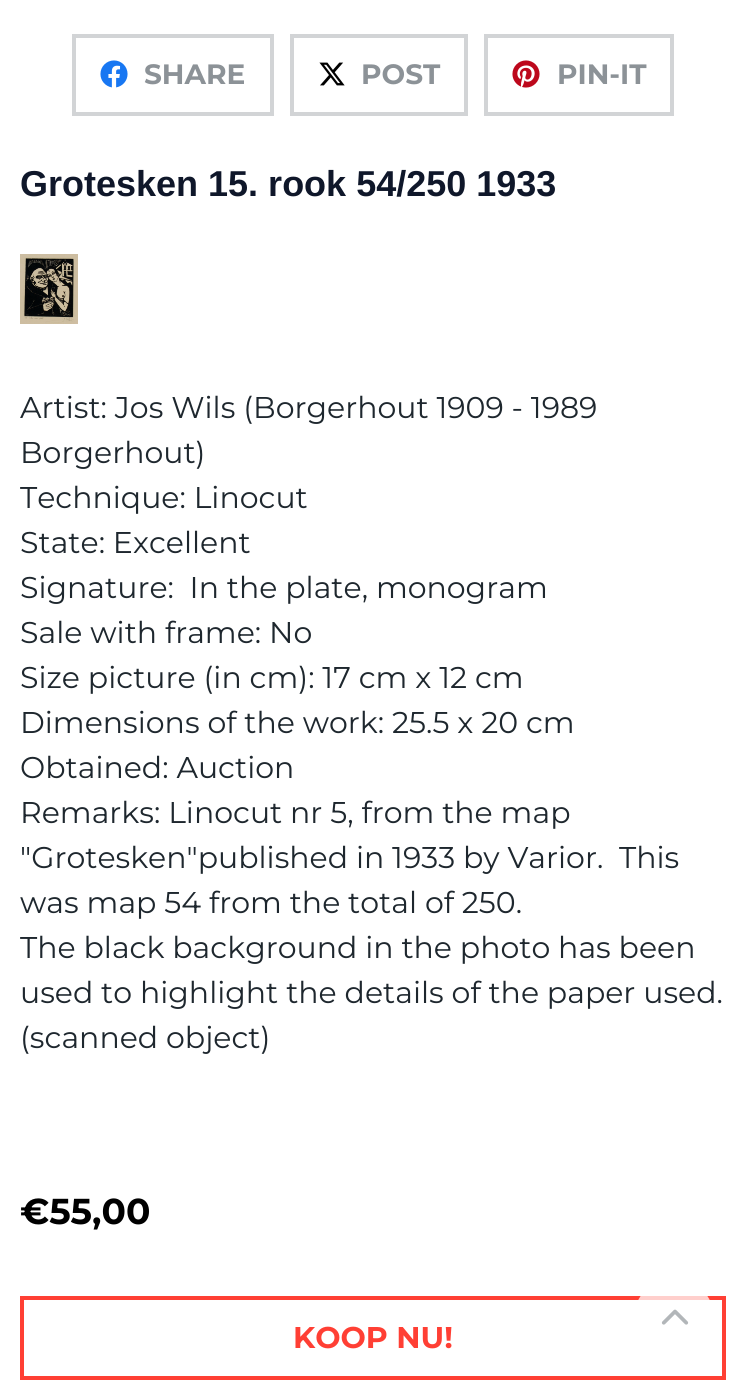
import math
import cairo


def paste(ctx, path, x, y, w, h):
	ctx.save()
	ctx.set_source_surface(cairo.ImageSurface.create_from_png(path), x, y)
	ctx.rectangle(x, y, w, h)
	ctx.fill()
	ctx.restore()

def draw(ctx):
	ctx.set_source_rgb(1, 1, 1)
	ctx.paint()
	ctx.rectangle(74, 36, 198, 78)
	ctx.set_source_rgb(0.824, 0.831, 0.839)
	ctx.set_line_width(4)
	ctx.stroke()
	paste(ctx, 'media/1.png', 100, 60, 28, 28)
	ctx.select_font_face('Montserrat Thin')
	ctx.set_font_size(28)
	ctx.set_source_rgb(0.549, 0.573, 0.592)
	ctx.move_to(144, 84)
	ctx.show_text('SHARE')
	ctx.rectangle(292, 36, 174, 78)
	ctx.set_source_rgb(0.824, 0.831, 0.839)
	ctx.stroke()
	paste(ctx, 'media/2.png', 319, 62, 26, 24)
	ctx.set_source_rgb(0.549, 0.573, 0.592)
	ctx.move_to(361, 84)
	ctx.show_text('POST')
	ctx.rectangle(486, 36, 186, 78)
	ctx.set_source_rgb(0.824, 0.831, 0.839)
	ctx.stroke()
	paste(ctx, 'media/3.png', 512, 60, 28, 28)
	ctx.set_source_rgb(0.549, 0.573, 0.592)
	ctx.move_to(557, 84)
	ctx.show_text('PIN-IT')
	ctx.select_font_face('Arimo', cairo.FONT_SLANT_NORMAL, cairo.FONT_WEIGHT_BOLD)
	ctx.set_font_size(36)
	ctx.set_source_rgb(0.059, 0.09, 0.165)
	ctx.move_to(20, 196)
	ctx.show_text('Grotesken 15. rook 54/250 1933')
	paste(ctx, 'media/4.png', 20, 254, 58, 70)
	ctx.select_font_face('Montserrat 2 Thin')
	ctx.set_font_size(30)
	ctx.set_source_rgb(0.118, 0.153, 0.18)
	for x, y, s in [
		(20, 418, 'Artist: Jos Wils (Borgerhout 1909 - 1989'),
		(20, 463, 'Borgerhout)'),
		(20, 508, 'Technique: Linocut'),
		(20, 553, 'State: Excellent'),
		(20, 598, 'Signature:  In the plate, monogram'),
		(20, 643, 'Sale with frame: No'),
		(20, 688, 'Size picture (in cm): 17 cm x 12 cm'),
		(20, 733, 'Dimensions of the work: 25.5 x 20 cm'),
		(20, 778, 'Obtained: Auction'),
		(20, 823, 'Remarks: Linocut nr 5, from the map'),
		(20, 868, '"Grotesken"published in 1933 by Varior.  This'),
		(20, 913, 'was map 54 from the total of 250.'),
		(20, 958, 'The black background in the photo has been'),
		(20, 1003, 'used to highlight the details of the paper used.'),
		(20, 1048, '(scanned object)'),
	]:
		ctx.move_to(x, y)
		ctx.show_text(s)
	ctx.select_font_face('Montserrat Thin')
	ctx.set_font_size(36)
	ctx.set_source_rgb(0, 0, 0)
	ctx.move_to(20, 1224)
	ctx.show_text('€55,00')
	ctx.rectangle(22, 1298, 702, 80)
	ctx.set_source_rgb(1, 0.247, 0.204)
	ctx.stroke()
	ctx.set_font_size(30)
	ctx.move_to(293, 1348)
	ctx.show_text('KOOP NU!')
	ctx.set_source_rgba(1, 1, 1, 0.75)
	ctx.new_path()
	ctx.arc(674, 1318, 40, 0, 2 * math.pi)
	ctx.fill()
	paste(ctx, 'media/5.png', 661, 1309, 28, 16)


surface = cairo.ImageSurface(cairo.FORMAT_RGB24, 745, 1389)
ctx = cairo.Context(surface)
options = cairo.FontOptions()
options.set_hint_metrics(cairo.HINT_METRICS_OFF)
options.set_hint_style(cairo.HINT_STYLE_NONE)
ctx.set_font_options(options)
ctx.set_miter_limit(4)
draw(ctx)
surface.write_to_png('image.png')
